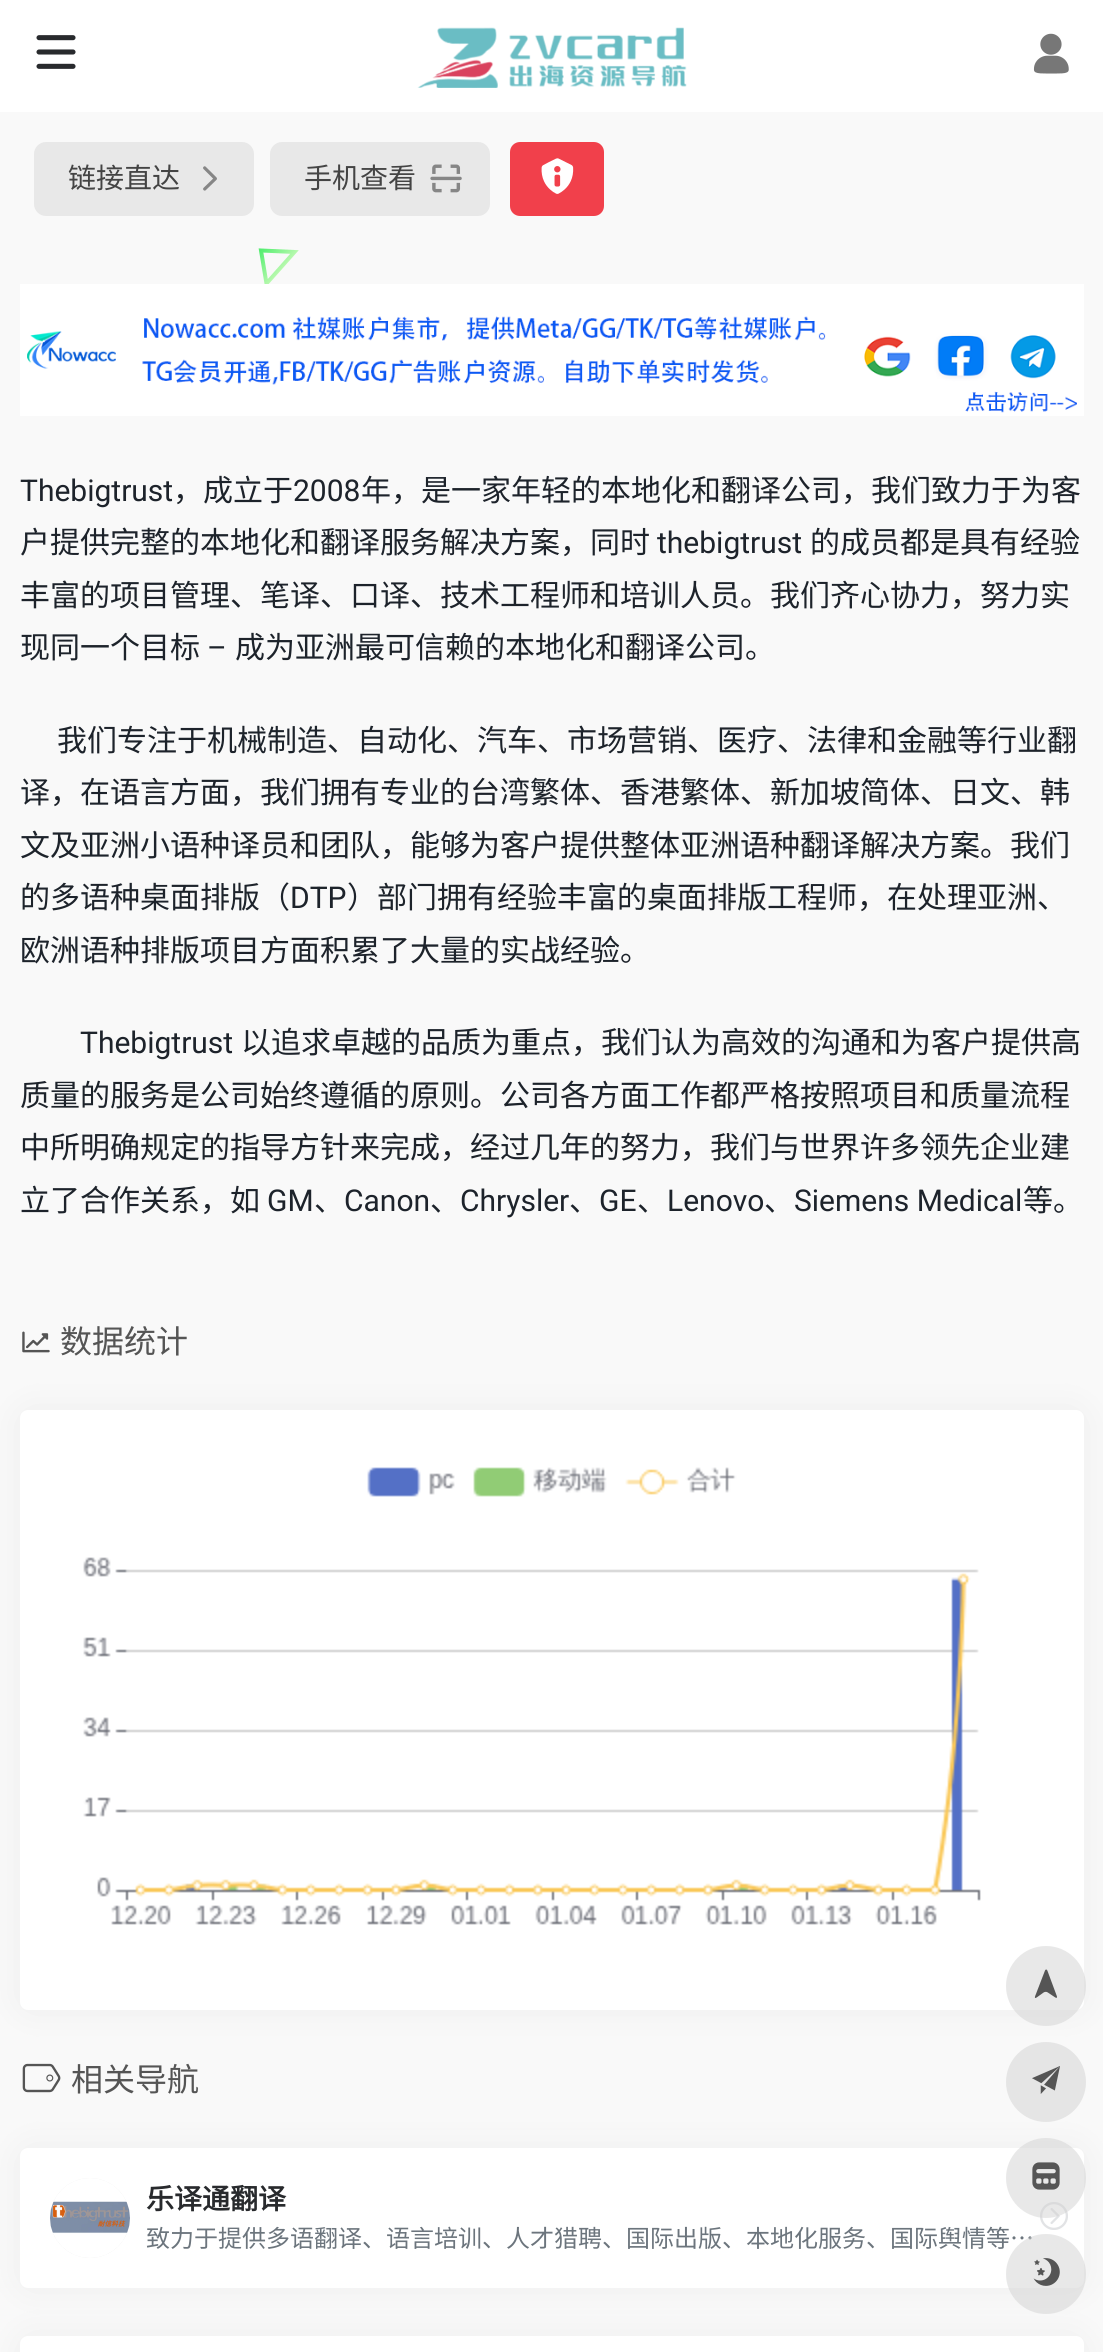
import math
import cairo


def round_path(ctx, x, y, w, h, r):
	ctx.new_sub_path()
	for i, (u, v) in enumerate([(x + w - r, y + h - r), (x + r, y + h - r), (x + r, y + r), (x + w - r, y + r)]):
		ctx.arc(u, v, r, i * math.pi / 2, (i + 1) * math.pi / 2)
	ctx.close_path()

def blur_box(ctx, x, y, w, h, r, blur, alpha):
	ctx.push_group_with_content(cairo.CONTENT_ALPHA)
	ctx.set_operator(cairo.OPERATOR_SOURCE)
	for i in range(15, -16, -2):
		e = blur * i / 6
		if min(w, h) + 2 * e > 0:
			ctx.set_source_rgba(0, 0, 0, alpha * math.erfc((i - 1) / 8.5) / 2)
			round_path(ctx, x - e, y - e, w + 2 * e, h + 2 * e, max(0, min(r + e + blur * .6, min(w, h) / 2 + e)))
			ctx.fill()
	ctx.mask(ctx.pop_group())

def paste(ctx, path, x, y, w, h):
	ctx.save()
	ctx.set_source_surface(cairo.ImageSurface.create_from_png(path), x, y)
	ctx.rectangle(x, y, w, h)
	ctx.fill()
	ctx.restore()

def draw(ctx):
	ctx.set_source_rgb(0.976, 0.976, 0.976)
	ctx.paint()
	ctx.set_source_rgb(1, 1, 1)
	ctx.rectangle(0, 0, 1103, 112)
	ctx.fill()
	paste(ctx, 'media/1.png', 36, 35, 40, 34)
	paste(ctx, 'media/2.png', 417, 27, 270, 61)
	paste(ctx, 'media/3.png', 1033, 33, 36, 41)
	ctx.set_source_rgb(0.91, 0.91, 0.91)
	round_path(ctx, 34, 142, 220, 74, 12)
	ctx.fill()
	ctx.select_font_face('Noto Sans CJK SC')
	ctx.set_font_size(28)
	ctx.set_source_rgb(0.267, 0.267, 0.267)
	ctx.move_to(68, 188)
	ctx.show_text('链接直达')
	paste(ctx, 'media/4.png', 203, 166, 14, 25)
	ctx.set_source_rgb(0.91, 0.91, 0.91)
	round_path(ctx, 270, 142, 220, 74, 12)
	ctx.fill()
	ctx.set_source_rgb(0.267, 0.267, 0.267)
	ctx.move_to(304, 188)
	ctx.show_text('手机查看')
	paste(ctx, 'media/5.png', 430, 164, 32, 29)
	ctx.set_source_rgb(0.945, 0.251, 0.294)
	round_path(ctx, 510, 142, 94, 74, 10)
	ctx.fill()
	paste(ctx, 'media/6.png', 541, 158, 33, 36)
	ctx.new_path()
	ctx.move_to(294.5, 252)
	ctx.line_to(261, 250.5)
	ctx.line_to(266.5, 283.5)
	ctx.close_path()
	gradient = cairo.LinearGradient(261, 250, 290, 276)
	gradient.add_color_stop_rgba(0, 0.333, 0.933, 0.443, 1)
	gradient.add_color_stop_rgba(1, 0.859, 0.992, 0.769, 1)
	ctx.set_source(gradient)
	ctx.set_line_width(4)
	ctx.stroke()
	paste(ctx, 'media/7.png', 20, 284, 1064, 132)
	ctx.select_font_face('Roboto')
	ctx.set_font_size(30)
	ctx.set_source_rgb(0.114, 0.137, 0.169)
	ctx.move_to(20, 501)
	ctx.show_text('Thebigtrust')
	ctx.select_font_face('Noto Sans CJK SC')
	ctx.move_to(173, 501)
	ctx.show_text('，成立于')
	ctx.select_font_face('Roboto')
	ctx.move_to(293, 501)
	ctx.show_text('2008')
	ctx.select_font_face('Noto Sans CJK SC')
	ctx.move_to(361, 501)
	ctx.show_text('年，是一家年轻的本地化和翻译公司，我们致力于为客')
	ctx.move_to(20, 553)
	ctx.show_text('户提供完整的本地化和翻译服务解决方案，同时')
	ctx.select_font_face('Roboto')
	ctx.move_to(657, 553)
	ctx.show_text('thebigtrust')
	ctx.select_font_face('Noto Sans CJK SC')
	for x, y, s in [
		(810, 553, '的成员都是具有经验'),
		(20, 606, '丰富的项目管理、笔译、口译、技术工程师和培训人员。我们齐心协力，努力实'),
		(20, 658, '现同一个目标'),
	]:
		ctx.move_to(x, y)
		ctx.show_text(s)
	ctx.select_font_face('Roboto')
	ctx.move_to(207, 658)
	ctx.show_text('–')
	ctx.select_font_face('Noto Sans CJK SC')
	for x, y, s in [
		(235, 658, '成为亚洲最可信赖的本地化和翻译公司。'),
		(57, 751, '我们专注于机械制造、自动化、汽车、市场营销、医疗、法律和金融等行业翻'),
		(20, 803, '译，在语言方面，我们拥有专业的台湾繁体、香港繁体、新加坡简体、日文、韩'),
		(20, 856, '文及亚洲小语种译员和团队，能够为客户提供整体亚洲语种翻译解决方案。我们'),
		(20, 908, '的多语种桌面排版（'),
	]:
		ctx.move_to(x, y)
		ctx.show_text(s)
	ctx.select_font_face('Roboto')
	ctx.move_to(290, 908)
	ctx.show_text('DTP')
	ctx.select_font_face('Noto Sans CJK SC')
	ctx.move_to(347, 908)
	ctx.show_text('）部门拥有经验丰富的桌面排版工程师，在处理亚洲、')
	ctx.move_to(20, 961)
	ctx.show_text('欧洲语种排版项目方面积累了大量的实战经验。')
	ctx.select_font_face('Roboto')
	ctx.move_to(80, 1053)
	ctx.show_text('Thebigtrust')
	ctx.select_font_face('Noto Sans CJK SC')
	for x, y, s in [
		(241, 1053, '以追求卓越的品质为重点，我们认为高效的沟通和为客户提供高'),
		(20, 1106, '质量的服务是公司始终遵循的原则。公司各方面工作都严格按照项目和质量流程'),
		(20, 1158, '中所明确规定的指导方针来完成，经过几年的努力，我们与世界许多领先企业建'),
		(20, 1211, '立了合作关系，如'),
	]:
		ctx.move_to(x, y)
		ctx.show_text(s)
	ctx.select_font_face('Roboto')
	ctx.move_to(267, 1211)
	ctx.show_text('GM')
	ctx.select_font_face('Noto Sans CJK SC')
	ctx.move_to(314, 1211)
	ctx.show_text('、')
	ctx.select_font_face('Roboto')
	ctx.move_to(344, 1211)
	ctx.show_text('Canon')
	ctx.select_font_face('Noto Sans CJK SC')
	ctx.move_to(430, 1211)
	ctx.show_text('、')
	ctx.select_font_face('Roboto')
	ctx.move_to(460, 1211)
	ctx.show_text('Chrysler')
	ctx.select_font_face('Noto Sans CJK SC')
	ctx.move_to(569, 1211)
	ctx.show_text('、')
	ctx.select_font_face('Roboto')
	ctx.move_to(599, 1211)
	ctx.show_text('GE')
	ctx.select_font_face('Noto Sans CJK SC')
	ctx.move_to(637, 1211)
	ctx.show_text('、')
	ctx.select_font_face('Roboto')
	ctx.move_to(667, 1211)
	ctx.show_text('Lenovo')
	ctx.select_font_face('Noto Sans CJK SC')
	ctx.move_to(764, 1211)
	ctx.show_text('、')
	ctx.select_font_face('Roboto')
	ctx.move_to(794, 1211)
	ctx.show_text('Siemens Medical')
	ctx.select_font_face('Noto Sans CJK SC')
	ctx.move_to(1023, 1211)
	ctx.show_text('等。')
	paste(ctx, 'media/8.png', 22, 1331, 28, 22)
	ctx.set_font_size(32)
	ctx.set_source_rgb(0.333, 0.333, 0.333)
	ctx.move_to(60, 1353)
	ctx.show_text('数据统计')
	ctx.set_source_rgb(0.62, 0.62, 0.62)
	blur_box(ctx, 30, 1420, 1044, 580, 0, 20, 0.2)
	ctx.set_source_rgb(1, 1, 1)
	round_path(ctx, 20, 1410, 1064, 600, 8)
	ctx.fill()
	paste(ctx, 'media/9.png', 83, 1467, 898, 458)
	paste(ctx, 'media/10.png', 22, 2063, 39, 30)
	ctx.set_source_rgb(0.333, 0.333, 0.333)
	ctx.move_to(71, 2091)
	ctx.show_text('相关导航')
	ctx.set_source_rgb(0.62, 0.62, 0.62)
	blur_box(ctx, 30, 2158, 1044, 120, 0, 20, 0.2)
	ctx.set_source_rgb(1, 1, 1)
	round_path(ctx, 20, 2148, 1064, 140, 8)
	ctx.fill()
	ctx.set_source_rgb(0.949, 0.949, 0.949)
	ctx.arc(90, 2218, 40, 0, 2 * math.pi)
	ctx.fill()
	paste(ctx, 'media/11.png', 50, 2178, 80, 80)
	ctx.select_font_face('Noto Sans CJK SC', cairo.FONT_SLANT_NORMAL, cairo.FONT_WEIGHT_BOLD)
	ctx.set_font_size(28)
	ctx.set_source_rgb(0.157, 0.165, 0.176)
	ctx.move_to(146, 2209)
	ctx.show_text('乐译通翻译')
	ctx.select_font_face('Noto Sans CJK SC')
	ctx.set_font_size(24)
	ctx.set_source_rgb(0.424, 0.459, 0.49)
	ctx.move_to(146, 2247)
	ctx.show_text('致力于提供多语翻译、语言培训、人才猎聘、国际出版、本地化服务、国际舆情等…')
	paste(ctx, 'media/12.png', 1040, 2202, 28, 28)
	ctx.set_source_rgb(0.62, 0.62, 0.62)
	blur_box(ctx, 30, 2346, 1044, 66, 0, 20, 0.2)
	ctx.set_source_rgb(1, 1, 1)
	round_path(ctx, 20, 2336, 1064, 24, 8)
	ctx.fill()
	ctx.set_source_rgba(0.824, 0.824, 0.824, 0.5)
	ctx.arc(1046, 1986, 40, 0, 2 * math.pi)
	ctx.fill()
	paste(ctx, 'media/13.png', 1034, 1969, 23, 29)
	ctx.set_source_rgb(0.898, 0.898, 0.898)
	ctx.arc(1046, 2082, 40, 0, 2 * math.pi)
	ctx.fill()
	paste(ctx, 'media/14.png', 1032, 2066, 28, 28)
	ctx.set_source_rgba(0.824, 0.824, 0.824, 0.5)
	ctx.arc(1046, 2178, 40, 0, 2 * math.pi)
	ctx.fill()
	paste(ctx, 'media/15.png', 1032, 2162, 28, 28)
	ctx.arc(1046, 2274, 40, 0, 2 * math.pi)
	ctx.fill()
	paste(ctx, 'media/16.png', 1033, 2258, 27, 28)


surface = cairo.ImageSurface(cairo.FORMAT_RGB24, 1103, 2352)
ctx = cairo.Context(surface)
options = cairo.FontOptions()
options.set_hint_metrics(cairo.HINT_METRICS_OFF)
options.set_hint_style(cairo.HINT_STYLE_NONE)
ctx.set_font_options(options)
ctx.set_miter_limit(4)
draw(ctx)
surface.write_to_png('image.png')
